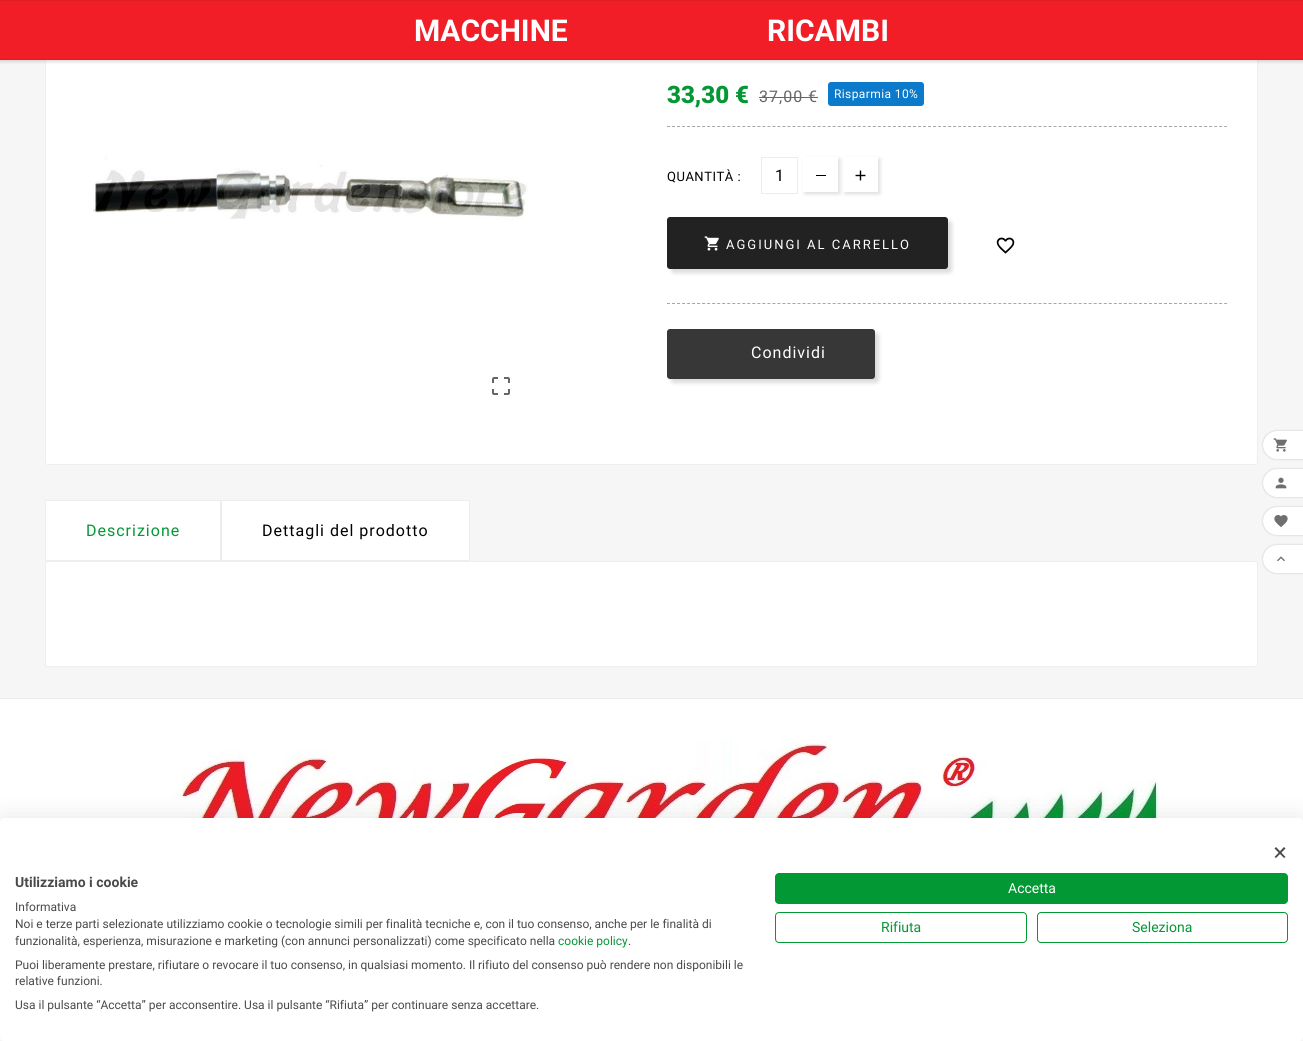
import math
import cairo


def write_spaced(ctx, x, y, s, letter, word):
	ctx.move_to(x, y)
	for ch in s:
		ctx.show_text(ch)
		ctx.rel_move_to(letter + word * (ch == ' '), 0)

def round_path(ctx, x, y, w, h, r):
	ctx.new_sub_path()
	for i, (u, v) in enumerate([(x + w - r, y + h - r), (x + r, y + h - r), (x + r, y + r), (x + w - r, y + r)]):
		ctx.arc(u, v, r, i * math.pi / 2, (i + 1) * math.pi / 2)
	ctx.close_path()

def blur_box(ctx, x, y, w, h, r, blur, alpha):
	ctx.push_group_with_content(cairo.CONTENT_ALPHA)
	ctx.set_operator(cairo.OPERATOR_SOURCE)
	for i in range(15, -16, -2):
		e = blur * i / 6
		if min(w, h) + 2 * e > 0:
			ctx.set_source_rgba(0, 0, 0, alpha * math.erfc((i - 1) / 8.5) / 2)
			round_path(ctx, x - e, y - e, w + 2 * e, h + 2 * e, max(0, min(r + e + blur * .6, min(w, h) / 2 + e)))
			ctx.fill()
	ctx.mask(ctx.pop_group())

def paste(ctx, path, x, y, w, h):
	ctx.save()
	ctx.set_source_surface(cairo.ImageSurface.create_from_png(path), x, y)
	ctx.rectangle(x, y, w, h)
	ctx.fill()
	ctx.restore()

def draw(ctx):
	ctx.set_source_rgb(0.961, 0.961, 0.961)
	ctx.paint()
	ctx.set_source_rgb(1, 1, 1)
	round_path(ctx, 45, -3, 1213, 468, 3)
	ctx.fill()
	round_path(ctx, 45.5, -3.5, 1212, 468, 2.5)
	ctx.set_source_rgba(0, 0, 0, 0.07)
	ctx.set_line_width(1)
	ctx.stroke()
	ctx.set_source_rgb(0.502, 0.502, 0.502)
	blur_box(ctx, -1, 0, 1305, 62, 0, 1.5, 0.27)
	ctx.set_source_rgb(0.945, 0.118, 0.153)
	ctx.rectangle(0, 1, 1303, 58)
	ctx.fill()
	ctx.set_source_rgb(0.878, 0.11, 0.141)
	ctx.rectangle(0, 0, 1303, 1)
	ctx.rectangle(0, 59, 1303, 1)
	ctx.fill()
	ctx.select_font_face('Roboto', cairo.FONT_SLANT_NORMAL, cairo.FONT_WEIGHT_BOLD)
	ctx.set_font_size(30)
	ctx.set_source_rgb(1, 1, 1)
	ctx.move_to(414, 41)
	ctx.show_text('MACCHINE')
	ctx.move_to(767, 41)
	ctx.show_text('RICAMBI')
	paste(ctx, 'media/1.png', 91, 155, 437, 66)
	paste(ctx, 'media/2.png', 492, 377, 18, 18)
	ctx.select_font_face('Roboto Black')
	ctx.set_font_size(24)
	ctx.set_source_rgb(0.02, 0.592, 0.208)
	ctx.move_to(667, 103)
	ctx.show_text('33,30 €')
	ctx.select_font_face('Roboto')
	ctx.set_font_size(16)
	ctx.set_source_rgb(0.4, 0.4, 0.4)
	write_spaced(ctx, 759, 102, '37,00 €', 1, 0)
	ctx.rectangle(759, 97, 59, 1)
	ctx.fill()
	ctx.set_source_rgb(0.043, 0.478, 0.796)
	round_path(ctx, 828, 82, 96, 24, 3)
	ctx.fill()
	ctx.set_font_size(12)
	ctx.set_source_rgb(1, 1, 1)
	write_spaced(ctx, 834, 98, 'Risparmia 10%', 0.4, 0)
	ctx.new_path()
	ctx.move_to(667, 126.5)
	ctx.line_to(1227, 126.5)
	ctx.set_source_rgb(0.655, 0.655, 0.655)
	ctx.set_dash([3, 2.02])
	ctx.stroke()
	ctx.set_font_size(13)
	ctx.set_source_rgb(0, 0, 0)
	write_spaced(ctx, 667, 181, 'QUANTITÀ :', 0.5, 0)
	ctx.rectangle(761.5, 157.5, 36, 36)
	ctx.set_source_rgb(0.929, 0.929, 0.929)
	ctx.set_dash([])
	ctx.stroke()
	ctx.set_font_size(16)
	ctx.set_source_rgb(0, 0, 0)
	ctx.move_to(775, 181)
	ctx.show_text('1')
	ctx.save()
	ctx.set_fill_rule(cairo.FILL_RULE_EVEN_ODD)
	ctx.new_path()
	ctx.move_to(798, 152)
	ctx.line_to(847, 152)
	ctx.line_to(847, 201)
	ctx.line_to(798, 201)
	ctx.close_path()
	ctx.move_to(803, 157)
	ctx.line_to(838, 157)
	ctx.line_to(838, 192)
	ctx.line_to(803, 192)
	ctx.close_path()
	ctx.clip()
	ctx.set_source_rgb(0, 0, 0)
	blur_box(ctx, 805, 159, 35, 35, 0, 2, 0.14)
	ctx.restore()
	ctx.rectangle(816, 175, 10, 1)
	ctx.fill()
	ctx.save()
	ctx.set_fill_rule(cairo.FILL_RULE_EVEN_ODD)
	ctx.new_path()
	ctx.move_to(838, 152)
	ctx.line_to(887, 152)
	ctx.line_to(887, 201)
	ctx.line_to(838, 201)
	ctx.close_path()
	ctx.move_to(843, 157)
	ctx.line_to(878, 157)
	ctx.line_to(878, 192)
	ctx.line_to(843, 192)
	ctx.close_path()
	ctx.clip()
	ctx.set_source_rgb(0, 0, 0)
	blur_box(ctx, 845, 159, 35, 35, 0, 2, 0.14)
	ctx.restore()
	paste(ctx, 'media/3.png', 855, 170, 11, 11)
	ctx.new_path()
	ctx.move_to(667, 303.5)
	ctx.line_to(1227, 303.5)
	ctx.set_source_rgb(0.655, 0.655, 0.655)
	ctx.set_dash([3, 2.02])
	ctx.stroke()
	paste(ctx, 'media/4.png', 996, 237, 19, 17)
	ctx.set_source_rgb(0, 0, 0)
	blur_box(ctx, 671, 221, 281, 52, 3, 2, 0.14)
	ctx.set_source_rgb(0.133, 0.133, 0.133)
	round_path(ctx, 667, 217, 281, 52, 3)
	ctx.fill()
	paste(ctx, 'media/5.png', 704, 236, 15, 15)
	ctx.set_font_size(13)
	ctx.set_source_rgb(1, 1, 1)
	write_spaced(ctx, 726, 249, 'AGGIUNGI AL CARRELLO', 2, 0)
	ctx.set_source_rgb(0, 0, 0)
	blur_box(ctx, 671, 333, 208, 50, 3, 2, 0.14)
	ctx.set_source_rgb(0.216, 0.216, 0.216)
	round_path(ctx, 667, 329, 208, 50, 3)
	ctx.fill()
	ctx.set_font_size(16)
	ctx.set_source_rgb(1, 1, 1)
	write_spaced(ctx, 751, 358, 'Condividi', 1, 0)
	ctx.rectangle(45.5, 500.5, 175, 60)
	ctx.fill_preserve()
	ctx.set_source_rgb(0.929, 0.929, 0.929)
	ctx.set_dash([])
	ctx.stroke()
	ctx.set_source_rgb(0.02, 0.592, 0.208)
	write_spaced(ctx, 86, 536, 'Descrizione', 1, 0)
	ctx.set_source_rgb(1, 1, 1)
	ctx.rectangle(221.5, 500.5, 248, 60)
	ctx.fill_preserve()
	ctx.set_source_rgb(0.929, 0.929, 0.929)
	ctx.stroke()
	ctx.set_source_rgb(0, 0, 0)
	write_spaced(ctx, 262, 536, 'Dettagli del prodotto', 1, 0)
	ctx.set_source_rgb(1, 1, 1)
	round_path(ctx, 45, 561, 1213, 106, 3)
	ctx.fill()
	round_path(ctx, 45.5, 561.5, 1212, 105, 2.5)
	ctx.set_source_rgba(0, 0, 0, 0.07)
	ctx.stroke()
	ctx.set_source_rgb(1, 1, 1)
	ctx.rectangle(0, 699, 1303, 342)
	ctx.fill()
	ctx.set_source_rgb(0.929, 0.929, 0.929)
	ctx.rectangle(0, 698, 1303, 1)
	ctx.fill()
	ctx.set_source_rgb(0, 0, 0)
	blur_box(ctx, 1263, 431, 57, 28, 14, 1, 0.2)
	ctx.set_source_rgb(1, 1, 1)
	ctx.new_path()
	ctx.move_to(1277, 431)
	ctx.line_to(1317, 431)
	ctx.line_to(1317, 459)
	ctx.line_to(1277, 459)
	ctx.curve_to(1269.5, 459, 1263, 452.5, 1263, 445)
	ctx.curve_to(1263, 437.5, 1269.5, 431, 1277, 431)
	ctx.close_path()
	ctx.fill()
	paste(ctx, 'media/6.png', 1273, 438, 14, 14)
	ctx.set_source_rgb(0, 0, 0)
	blur_box(ctx, 1263, 469, 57, 28, 14, 1, 0.2)
	ctx.set_source_rgb(1, 1, 1)
	ctx.new_path()
	ctx.move_to(1277, 469)
	ctx.line_to(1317, 469)
	ctx.line_to(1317, 497)
	ctx.line_to(1277, 497)
	ctx.curve_to(1269.5, 497, 1263, 490.5, 1263, 483)
	ctx.curve_to(1263, 475.5, 1269.5, 469, 1277, 469)
	ctx.close_path()
	ctx.fill()
	paste(ctx, 'media/7.png', 1275, 477, 12, 12)
	ctx.set_source_rgb(0, 0, 0)
	blur_box(ctx, 1263, 507, 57, 28, 14, 1, 0.2)
	ctx.set_source_rgb(1, 1, 1)
	ctx.new_path()
	ctx.move_to(1277, 507)
	ctx.line_to(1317, 507)
	ctx.line_to(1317, 535)
	ctx.line_to(1277, 535)
	ctx.curve_to(1269.5, 535, 1263, 528.5, 1263, 521)
	ctx.curve_to(1263, 513.5, 1269.5, 507, 1277, 507)
	ctx.close_path()
	ctx.fill()
	paste(ctx, 'media/8.png', 1274, 515, 14, 12)
	ctx.set_source_rgb(0, 0, 0)
	blur_box(ctx, 1263, 545, 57, 28, 14, 1, 0.2)
	ctx.set_source_rgb(1, 1, 1)
	ctx.new_path()
	ctx.move_to(1277, 545)
	ctx.line_to(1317, 545)
	ctx.line_to(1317, 573)
	ctx.line_to(1277, 573)
	ctx.curve_to(1269.5, 573, 1263, 566.5, 1263, 559)
	ctx.curve_to(1263, 551.5, 1269.5, 545, 1277, 545)
	ctx.close_path()
	ctx.fill()
	paste(ctx, 'media/9.png', 1277, 556, 8, 6)
	paste(ctx, 'media/10.png', 141, 739, 1018, 79)
	ctx.set_source_rgb(0, 0, 0)
	blur_box(ctx, 0, 818, 1303, 223, 4, 12, 0.1)
	ctx.set_source_rgb(1, 1, 1)
	round_path(ctx, 0, 818, 1303, 223, 4)
	ctx.fill()
	ctx.set_source_rgb(0.29, 0.29, 0.29)
	ctx.new_path()
	ctx.move_to(1284, 847)
	ctx.line_to(1285.5, 848.5)
	ctx.line_to(1276, 858)
	ctx.line_to(1274.5, 857)
	ctx.close_path()
	ctx.fill()
	ctx.new_path()
	ctx.move_to(1274.5, 848.5)
	ctx.line_to(1276, 847)
	ctx.line_to(1285.5, 857)
	ctx.line_to(1284, 858)
	ctx.close_path()
	ctx.fill()
	ctx.select_font_face('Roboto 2', cairo.FONT_SLANT_NORMAL, cairo.FONT_WEIGHT_BOLD)
	ctx.set_font_size(14)
	ctx.move_to(15, 887)
	ctx.show_text('Utilizziamo i cookie')
	ctx.select_font_face('Roboto')
	ctx.set_font_size(12)
	for x, y, s in [
		(15, 911, 'Informativa'),
		(15, 928, 'Noi e terze parti selezionate utilizziamo cookie o tecnologie simili per finalità tecniche e, con il tuo consenso, anche per le finalità di'),
		(15, 945, 'funzionalità, esperienza, misurazione e marketing (con annunci personalizzati) come specificato nella'),
	]:
		ctx.move_to(x, y)
		ctx.show_text(s)
	ctx.set_source_rgb(0.02, 0.592, 0.208)
	ctx.move_to(558, 945)
	ctx.show_text('cookie policy')
	ctx.set_source_rgb(0.29, 0.29, 0.29)
	for x, y, s in [
		(628, 945, '.'),
		(15, 969, 'Puoi liberamente prestare, rifiutare o revocare il tuo consenso, in qualsiasi momento. Il rifiuto del consenso può rendere non disponibili le'),
		(15, 985, 'relative funzioni.'),
		(15, 1009, 'Usa il pulsante “Accetta” per acconsentire. Usa il pulsante “Rifiuta” per continuare senza accettare.'),
	]:
		ctx.move_to(x, y)
		ctx.show_text(s)
	ctx.set_source_rgb(0.008, 0.596, 0.204)
	round_path(ctx, 775.5, 873.5, 512, 30, 3.5)
	ctx.fill_preserve()
	ctx.stroke()
	ctx.set_font_size(14)
	ctx.set_source_rgb(1, 1, 1)
	ctx.move_to(1008, 893)
	ctx.show_text('Accetta')
	round_path(ctx, 775.5, 912.5, 251, 30, 3.5)
	ctx.set_source_rgb(0.008, 0.596, 0.204)
	ctx.stroke()
	ctx.set_source_rgb(0.02, 0.592, 0.208)
	ctx.move_to(881, 932)
	ctx.show_text('Rifiuta')
	round_path(ctx, 1037.5, 912.5, 250, 30, 3.5)
	ctx.set_source_rgb(0.008, 0.596, 0.204)
	ctx.stroke()
	ctx.set_source_rgb(0.02, 0.592, 0.208)
	ctx.move_to(1132, 932)
	ctx.show_text('Seleziona')


surface = cairo.ImageSurface(cairo.FORMAT_RGB24, 1303, 1041)
ctx = cairo.Context(surface)
options = cairo.FontOptions()
options.set_hint_metrics(cairo.HINT_METRICS_OFF)
options.set_hint_style(cairo.HINT_STYLE_NONE)
ctx.set_font_options(options)
ctx.set_miter_limit(4)
draw(ctx)
surface.write_to_png('image.png')
